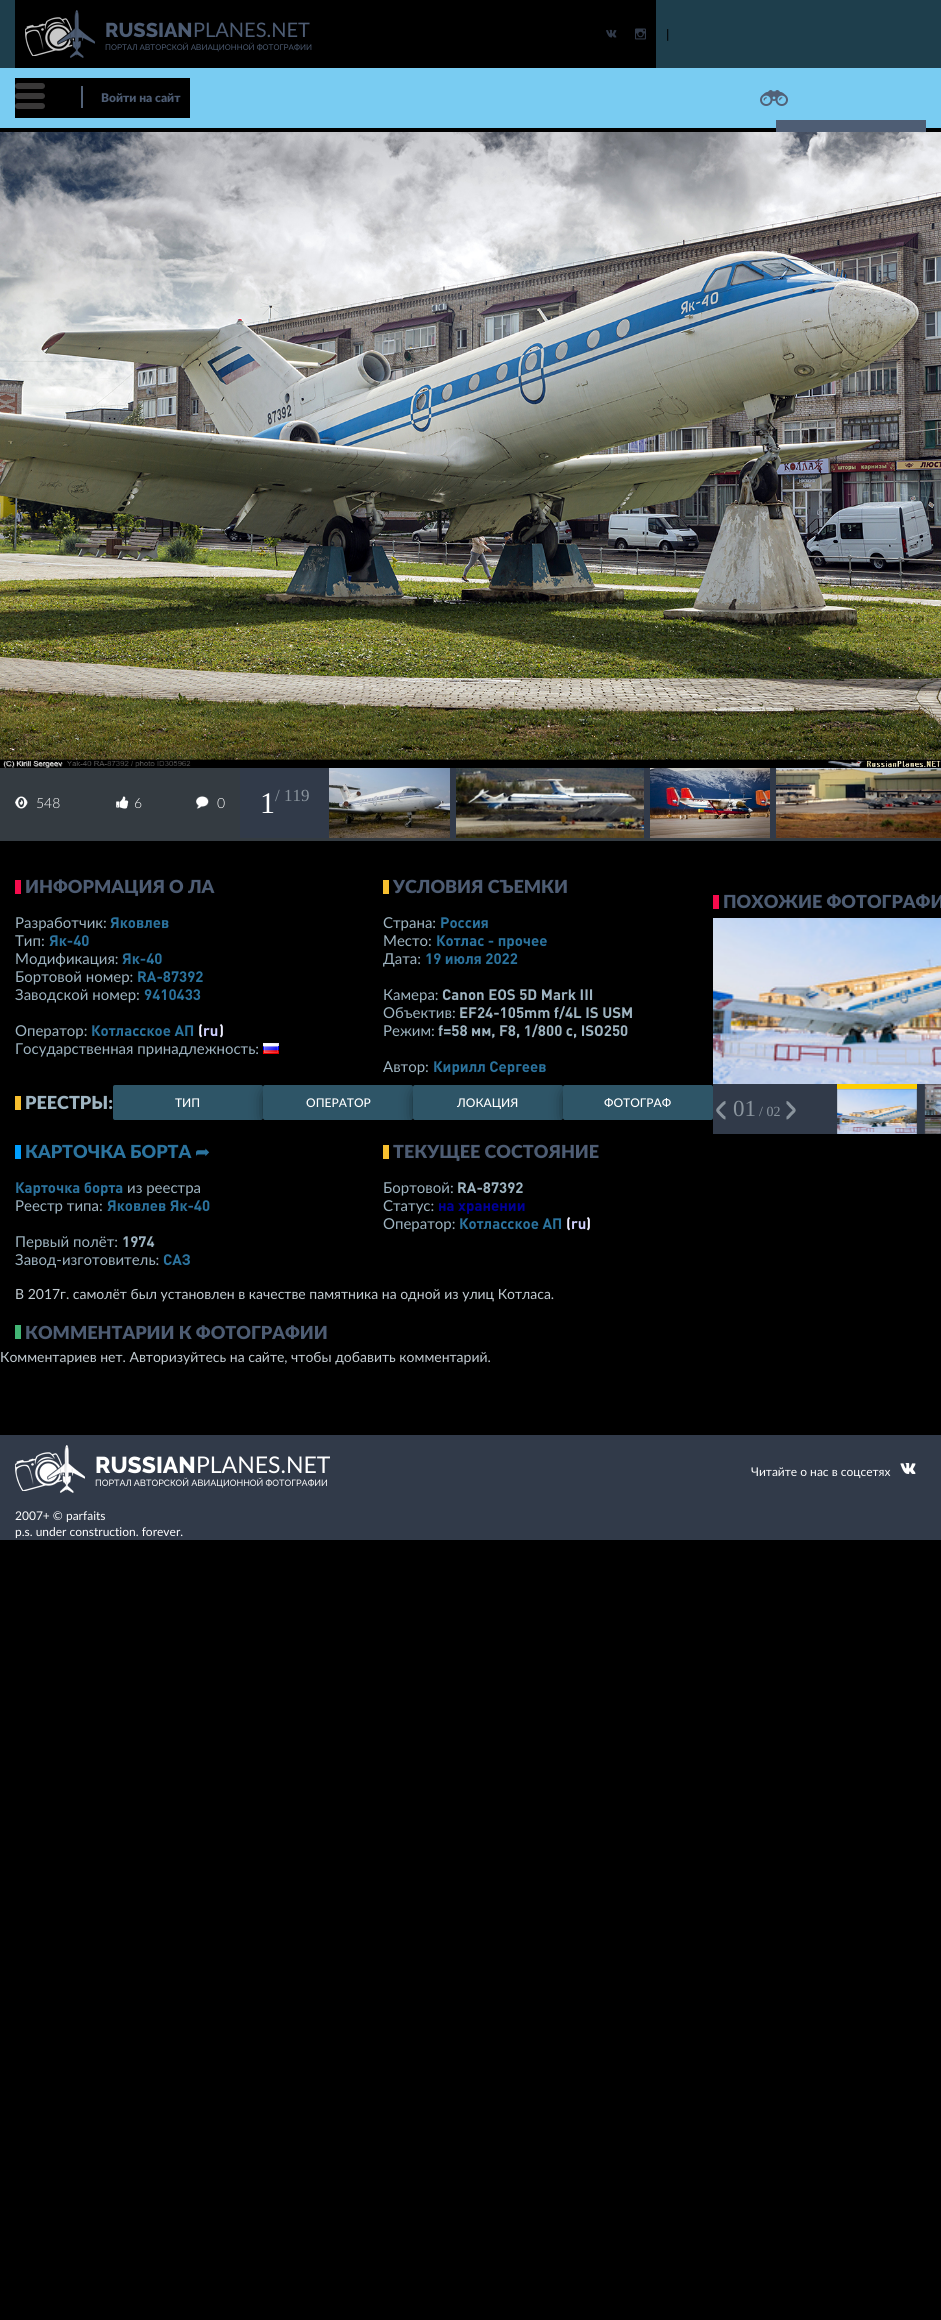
import math
import cairo


def round_path(ctx, x, y, w, h, r):
	ctx.new_sub_path()
	for i, (u, v) in enumerate([(x + w - r, y + h - r), (x + r, y + h - r), (x + r, y + r), (x + w - r, y + r)]):
		ctx.arc(u, v, r, i * math.pi / 2, (i + 1) * math.pi / 2)
	ctx.close_path()

def blur_box(ctx, x, y, w, h, r, blur, alpha):
	ctx.push_group_with_content(cairo.CONTENT_ALPHA)
	ctx.set_operator(cairo.OPERATOR_SOURCE)
	for i in range(15, -16, -2):
		e = blur * i / 6
		if min(w, h) + 2 * e > 0:
			ctx.set_source_rgba(0, 0, 0, alpha * math.erfc((i - 1) / 8.5) / 2)
			round_path(ctx, x - e, y - e, w + 2 * e, h + 2 * e, max(0, min(r + e + blur * .6, min(w, h) / 2 + e)))
			ctx.fill()
	ctx.mask(ctx.pop_group())

def paste(ctx, path, x, y, w, h):
	ctx.save()
	ctx.set_source_surface(cairo.ImageSurface.create_from_png(path), x, y)
	ctx.rectangle(x, y, w, h)
	ctx.fill()
	ctx.restore()

def draw(ctx):
	ctx.set_source_rgb(0, 0, 0)
	ctx.paint()
	ctx.set_source_rgb(0.118, 0.243, 0.298)
	ctx.rectangle(0, 0, 941, 68)
	ctx.fill()
	ctx.set_source_rgb(0, 0, 0)
	ctx.rectangle(15, 0, 641, 68)
	ctx.fill()
	paste(ctx, 'media/1.png', 25, 10, 70, 48)
	ctx.select_font_face('Raleway ExtraBold')
	ctx.set_font_size(20)
	ctx.set_source_rgb(0.302, 0.361, 0.451)
	ctx.move_to(105, 37)
	ctx.show_text('RUSSIAN')
	ctx.select_font_face('Lato')
	ctx.move_to(193, 37)
	ctx.show_text('PLANES.NET')
	ctx.select_font_face('Raleway Medium')
	ctx.set_font_size(8)
	ctx.move_to(105, 50)
	ctx.show_text('ПОРТАЛ АВТОРСКОЙ АВИАЦИОННОЙ ФОТОГРАФИИ')
	paste(ctx, 'media/2.png', 606, 29, 11, 9)
	paste(ctx, 'media/3.png', 635, 28, 11, 12)
	ctx.select_font_face('Roboto')
	ctx.set_font_size(14)
	ctx.set_source_rgb(0, 0, 0)
	ctx.move_to(666, 39)
	ctx.show_text('|')
	ctx.set_source_rgb(0.475, 0.8, 0.949)
	ctx.rectangle(0, 68, 941, 60)
	ctx.fill()
	ctx.set_source_rgb(0.306, 0.365, 0.455)
	ctx.rectangle(776, 120, 150, 12)
	ctx.fill()
	ctx.set_source_rgb(0, 0, 0)
	ctx.rectangle(15, 78, 175, 40)
	ctx.fill()
	ctx.set_source_rgb(0.224, 0.22, 0.22)
	round_path(ctx, 15, 83, 30, 6, 3)
	ctx.fill()
	round_path(ctx, 15, 93, 30, 6, 3)
	ctx.fill()
	round_path(ctx, 15, 103, 30, 6, 3)
	ctx.fill()
	ctx.set_source_rgb(0.322, 0.38, 0.467)
	ctx.rectangle(81, 86, 2, 22)
	ctx.fill()
	ctx.select_font_face('Lato Black')
	ctx.set_font_size(12)
	ctx.set_source_rgb(0.302, 0.361, 0.451)
	ctx.move_to(101, 102)
	ctx.show_text('Войти на сайт')
	paste(ctx, 'media/4.png', 760, 90, 28, 16)
	paste(ctx, 'media/5.png', 0, 132, 941, 636)
	ctx.set_source_rgb(0.192, 0.227, 0.286)
	ctx.rectangle(240, 768, 536, 70)
	ctx.fill()
	ctx.set_source_rgb(0.204, 0.231, 0.255)
	ctx.rectangle(0, 768, 240, 70)
	ctx.fill()
	paste(ctx, 'media/6.png', 15, 796, 13, 13)
	ctx.select_font_face('Lato Light')
	ctx.set_font_size(14)
	ctx.set_source_rgb(1, 1, 1)
	ctx.move_to(36, 808)
	ctx.show_text('548')
	paste(ctx, 'media/7.png', 116, 796, 13, 13)
	ctx.move_to(134, 808)
	ctx.show_text('6')
	paste(ctx, 'media/8.png', 196, 796, 13, 13)
	ctx.move_to(217, 808)
	ctx.show_text('0')
	ctx.select_font_face('Liberation Serif')
	ctx.set_font_size(30)
	ctx.move_to(260, 813)
	ctx.show_text('1')
	ctx.set_font_size(17)
	ctx.set_source_rgb(0.541, 0.58, 0.616)
	ctx.move_to(275, 801)
	ctx.show_text('/ 119')
	paste(ctx, 'media/9.png', 329, 768, 121, 70)
	paste(ctx, 'media/10.png', 456, 768, 188, 70)
	paste(ctx, 'media/11.png', 650, 768, 120, 70)
	paste(ctx, 'media/12.png', 776, 768, 165, 70)
	ctx.set_source_rgb(0.204, 0.231, 0.255)
	ctx.rectangle(0, 838, 941, 3)
	ctx.fill()
	ctx.set_source_rgb(0.961, 0.047, 0.302)
	ctx.rectangle(15, 880, 6, 14)
	ctx.fill()
	ctx.select_font_face('Lato Black')
	ctx.set_font_size(18)
	ctx.set_source_rgb(0.302, 0.361, 0.451)
	ctx.move_to(25, 893)
	ctx.show_text('ИНФОРМАЦИЯ О ЛА')
	ctx.select_font_face('Lato')
	ctx.set_font_size(15)
	ctx.set_source_rgb(0.62, 0.706, 0.757)
	ctx.move_to(15, 928)
	ctx.show_text('Разработчик:')
	ctx.select_font_face('DIN', cairo.FONT_SLANT_NORMAL, cairo.FONT_WEIGHT_BOLD)
	ctx.set_source_rgb(0.169, 0.451, 0.62)
	ctx.move_to(110, 928)
	ctx.show_text('Яковлев')
	ctx.select_font_face('Lato')
	ctx.set_source_rgb(0.62, 0.706, 0.757)
	ctx.move_to(15, 946)
	ctx.show_text('Тип:')
	ctx.select_font_face('DIN', cairo.FONT_SLANT_NORMAL, cairo.FONT_WEIGHT_BOLD)
	ctx.set_source_rgb(0.169, 0.451, 0.62)
	ctx.move_to(49, 946)
	ctx.show_text('Як-40')
	ctx.select_font_face('Lato')
	ctx.set_source_rgb(0.62, 0.706, 0.757)
	ctx.move_to(15, 964)
	ctx.show_text('Модификация:')
	ctx.select_font_face('DIN', cairo.FONT_SLANT_NORMAL, cairo.FONT_WEIGHT_BOLD)
	ctx.set_source_rgb(0.169, 0.451, 0.62)
	ctx.move_to(122, 964)
	ctx.show_text('Як-40')
	ctx.select_font_face('Lato')
	ctx.set_source_rgb(0.62, 0.706, 0.757)
	ctx.move_to(15, 982)
	ctx.show_text('Бортовой номер:')
	ctx.select_font_face('DIN', cairo.FONT_SLANT_NORMAL, cairo.FONT_WEIGHT_BOLD)
	ctx.set_source_rgb(0.169, 0.451, 0.62)
	ctx.move_to(137, 982)
	ctx.show_text('RA-87392')
	ctx.select_font_face('Lato')
	ctx.set_source_rgb(0.62, 0.706, 0.757)
	ctx.move_to(15, 1000)
	ctx.show_text('Заводской номер:')
	ctx.select_font_face('DIN', cairo.FONT_SLANT_NORMAL, cairo.FONT_WEIGHT_BOLD)
	ctx.set_source_rgb(0.169, 0.451, 0.62)
	ctx.move_to(144, 1000)
	ctx.show_text('9410433')
	ctx.select_font_face('Lato')
	ctx.set_source_rgb(0.62, 0.706, 0.757)
	ctx.move_to(15, 1036)
	ctx.show_text('Оператор:')
	ctx.select_font_face('DIN', cairo.FONT_SLANT_NORMAL, cairo.FONT_WEIGHT_BOLD)
	ctx.set_source_rgb(0.169, 0.451, 0.62)
	ctx.move_to(91, 1036)
	ctx.show_text('Котласское АП')
	ctx.set_source_rgb(0.933, 0.933, 1)
	ctx.move_to(198, 1036)
	ctx.show_text('(')
	ctx.set_source_rgb(0.816, 0.816, 1)
	ctx.move_to(203, 1036)
	ctx.show_text('ru')
	ctx.set_source_rgb(0.933, 0.933, 1)
	ctx.move_to(219, 1036)
	ctx.show_text(')')
	ctx.select_font_face('Lato')
	ctx.set_source_rgb(0.62, 0.706, 0.757)
	ctx.move_to(15, 1054)
	ctx.show_text('Государственная принадлежность:')
	paste(ctx, 'media/13.png', 263, 1043, 16, 11)
	ctx.set_source_rgb(0.965, 0.749, 0.184)
	ctx.rectangle(383, 880, 6, 14)
	ctx.fill()
	ctx.select_font_face('Lato Black')
	ctx.set_font_size(18)
	ctx.set_source_rgb(0.302, 0.361, 0.451)
	ctx.move_to(393, 893)
	ctx.show_text('УСЛОВИЯ СЪЕМКИ')
	ctx.select_font_face('Lato')
	ctx.set_font_size(15)
	ctx.set_source_rgb(0.62, 0.706, 0.757)
	ctx.move_to(383, 928)
	ctx.show_text('Страна:')
	ctx.select_font_face('DIN', cairo.FONT_SLANT_NORMAL, cairo.FONT_WEIGHT_BOLD)
	ctx.set_source_rgb(0.169, 0.451, 0.62)
	ctx.move_to(440, 928)
	ctx.show_text('Россия')
	ctx.select_font_face('Lato')
	ctx.set_source_rgb(0.62, 0.706, 0.757)
	ctx.move_to(383, 946)
	ctx.show_text('Место:')
	ctx.select_font_face('DIN', cairo.FONT_SLANT_NORMAL, cairo.FONT_WEIGHT_BOLD)
	ctx.set_source_rgb(0.169, 0.451, 0.62)
	ctx.move_to(436, 946)
	ctx.show_text('Котлас - прочее')
	ctx.select_font_face('Lato')
	ctx.set_source_rgb(0.62, 0.706, 0.757)
	ctx.move_to(383, 964)
	ctx.show_text('Дата:')
	ctx.select_font_face('DIN', cairo.FONT_SLANT_NORMAL, cairo.FONT_WEIGHT_BOLD)
	ctx.set_source_rgb(0.169, 0.451, 0.62)
	ctx.move_to(425, 964)
	ctx.show_text('19 июля 2022')
	ctx.select_font_face('Lato')
	ctx.set_source_rgb(0.62, 0.706, 0.757)
	ctx.move_to(383, 1000)
	ctx.show_text('Камера:')
	ctx.select_font_face('DIN', cairo.FONT_SLANT_NORMAL, cairo.FONT_WEIGHT_BOLD)
	ctx.move_to(442, 1000)
	ctx.show_text('Canon EOS 5D Mark III')
	ctx.select_font_face('Lato')
	ctx.move_to(383, 1018)
	ctx.show_text('Объектив:')
	ctx.select_font_face('DIN', cairo.FONT_SLANT_NORMAL, cairo.FONT_WEIGHT_BOLD)
	ctx.move_to(459, 1018)
	ctx.show_text('EF24-105mm f/4L IS USM')
	ctx.select_font_face('Lato')
	ctx.move_to(383, 1036)
	ctx.show_text('Режим:')
	ctx.select_font_face('DIN', cairo.FONT_SLANT_NORMAL, cairo.FONT_WEIGHT_BOLD)
	ctx.move_to(438, 1036)
	ctx.show_text('f=58 мм, F8, 1/800 с, ISO250')
	ctx.select_font_face('Lato')
	ctx.move_to(383, 1072)
	ctx.show_text('Автор:')
	ctx.select_font_face('DIN', cairo.FONT_SLANT_NORMAL, cairo.FONT_WEIGHT_BOLD)
	ctx.set_source_rgb(0.169, 0.451, 0.62)
	ctx.move_to(433, 1072)
	ctx.show_text('Кирилл Сергеев')
	ctx.set_source_rgb(0.965, 0.749, 0.184)
	ctx.rectangle(15, 1096, 6, 14)
	ctx.fill()
	ctx.select_font_face('Lato Black')
	ctx.set_font_size(18)
	ctx.set_source_rgb(0.62, 0.706, 0.757)
	ctx.move_to(25, 1109)
	ctx.show_text('РЕЕСТРЫ:')
	ctx.set_source_rgb(0.18, 0.333, 0.404)
	round_path(ctx, 113, 1085, 150, 35, 2)
	ctx.fill()
	ctx.select_font_face('Lato Medium')
	ctx.set_font_size(12)
	ctx.set_source_rgb(1, 1, 1)
	ctx.move_to(175, 1107)
	ctx.show_text('ТИП')
	ctx.set_source_rgb(0, 0, 0)
	blur_box(ctx, 269, 1095, 138, 23, 0, 8.5, 1)
	ctx.set_source_rgb(0.18, 0.333, 0.404)
	round_path(ctx, 263, 1085, 150, 35, 2)
	ctx.fill()
	ctx.set_source_rgb(1, 1, 1)
	ctx.move_to(306, 1107)
	ctx.show_text('ОПЕРАТОР')
	ctx.set_source_rgb(0, 0, 0)
	blur_box(ctx, 419, 1095, 138, 23, 0, 8.5, 1)
	ctx.set_source_rgb(0.18, 0.333, 0.404)
	round_path(ctx, 413, 1085, 150, 35, 2)
	ctx.fill()
	ctx.set_source_rgb(1, 1, 1)
	ctx.move_to(457, 1107)
	ctx.show_text('ЛОКАЦИЯ')
	ctx.set_source_rgb(0, 0, 0)
	blur_box(ctx, 569, 1095, 138, 23, 0, 8.5, 1)
	ctx.set_source_rgb(0.18, 0.333, 0.404)
	round_path(ctx, 563, 1085, 150, 35, 2)
	ctx.fill()
	ctx.set_source_rgb(1, 1, 1)
	ctx.move_to(604, 1107)
	ctx.show_text('ФОТОГРАФ')
	ctx.set_source_rgb(0, 0.624, 1)
	ctx.rectangle(15, 1145, 6, 14)
	ctx.fill()
	ctx.select_font_face('Lato Black')
	ctx.set_font_size(18)
	ctx.set_source_rgb(0.169, 0.451, 0.62)
	ctx.move_to(25, 1158)
	ctx.show_text('КАРТОЧКА БОРТА')
	ctx.select_font_face('DejaVu Sans')
	ctx.move_to(195, 1158)
	ctx.show_text('➦')
	ctx.select_font_face('DIN', cairo.FONT_SLANT_NORMAL, cairo.FONT_WEIGHT_BOLD)
	ctx.set_font_size(15)
	ctx.move_to(15, 1193)
	ctx.show_text('Карточка борта')
	ctx.select_font_face('Lato')
	ctx.set_source_rgb(0.62, 0.706, 0.757)
	ctx.move_to(127, 1193)
	ctx.show_text('из реестра')
	ctx.move_to(15, 1211)
	ctx.show_text('Реестр типа:')
	ctx.select_font_face('DIN', cairo.FONT_SLANT_NORMAL, cairo.FONT_WEIGHT_BOLD)
	ctx.set_source_rgb(0.169, 0.451, 0.62)
	ctx.move_to(107, 1211)
	ctx.show_text('Яковлев Як-40')
	ctx.select_font_face('Lato')
	ctx.set_source_rgb(0.62, 0.706, 0.757)
	ctx.move_to(15, 1247)
	ctx.show_text('Первый полёт:')
	ctx.select_font_face('DIN', cairo.FONT_SLANT_NORMAL, cairo.FONT_WEIGHT_BOLD)
	ctx.move_to(122, 1247)
	ctx.show_text('1974')
	ctx.select_font_face('Lato')
	ctx.move_to(15, 1265)
	ctx.show_text('Завод-изготовитель:')
	ctx.select_font_face('DIN', cairo.FONT_SLANT_NORMAL, cairo.FONT_WEIGHT_BOLD)
	ctx.set_source_rgb(0.169, 0.451, 0.62)
	ctx.move_to(163, 1265)
	ctx.show_text('САЗ')
	ctx.set_source_rgb(0.965, 0.749, 0.184)
	ctx.rectangle(383, 1145, 6, 14)
	ctx.fill()
	ctx.select_font_face('Lato Black')
	ctx.set_font_size(18)
	ctx.set_source_rgb(0.302, 0.361, 0.451)
	ctx.move_to(393, 1158)
	ctx.show_text('ТЕКУЩЕЕ СОСТОЯНИЕ')
	ctx.select_font_face('Lato')
	ctx.set_font_size(15)
	ctx.set_source_rgb(0.62, 0.706, 0.757)
	ctx.move_to(383, 1193)
	ctx.show_text('Бортовой:')
	ctx.select_font_face('DIN', cairo.FONT_SLANT_NORMAL, cairo.FONT_WEIGHT_BOLD)
	ctx.move_to(457, 1193)
	ctx.show_text('RA-87392')
	ctx.select_font_face('Lato')
	ctx.move_to(383, 1211)
	ctx.show_text('Статус:')
	ctx.select_font_face('DIN', cairo.FONT_SLANT_NORMAL, cairo.FONT_WEIGHT_BOLD)
	ctx.set_source_rgb(0, 0, 0.6)
	ctx.move_to(438, 1211)
	ctx.show_text('на хранении')
	ctx.select_font_face('Lato')
	ctx.set_source_rgb(0.62, 0.706, 0.757)
	ctx.move_to(383, 1229)
	ctx.show_text('Оператор:')
	ctx.select_font_face('DIN', cairo.FONT_SLANT_NORMAL, cairo.FONT_WEIGHT_BOLD)
	ctx.set_source_rgb(0.169, 0.451, 0.62)
	ctx.move_to(459, 1229)
	ctx.show_text('Котласское АП')
	ctx.set_source_rgb(0.933, 0.933, 1)
	ctx.move_to(566, 1229)
	ctx.show_text('(')
	ctx.set_source_rgb(0.816, 0.816, 1)
	ctx.move_to(571, 1229)
	ctx.show_text('ru')
	ctx.set_source_rgb(0.933, 0.933, 1)
	ctx.move_to(586, 1229)
	ctx.show_text(')')
	ctx.select_font_face('Lato')
	ctx.set_font_size(14)
	ctx.set_source_rgb(0.761, 0.8, 0.824)
	ctx.move_to(15, 1299)
	ctx.show_text('В 2017г. самолёт был установлен в качестве памятника на одной из улиц Котласа.')
	ctx.set_source_rgb(0.259, 0.71, 0.455)
	ctx.rectangle(15, 1325, 6, 14)
	ctx.fill()
	ctx.select_font_face('Lato Black')
	ctx.set_font_size(18)
	ctx.set_source_rgb(0.302, 0.361, 0.451)
	ctx.move_to(25, 1339)
	ctx.show_text('КОММЕНТАРИИ К ФОТОГРАФИИ')
	ctx.select_font_face('Lato')
	ctx.set_font_size(14)
	ctx.set_source_rgb(0.761, 0.8, 0.824)
	ctx.move_to(0, 1362)
	ctx.show_text('Комментариев нет. Авторизуйтесь на сайте, чтобы добавить комментарий.')
	ctx.set_source_rgb(0.961, 0.047, 0.302)
	ctx.rectangle(713, 895, 6, 14)
	ctx.fill()
	ctx.select_font_face('Lato Black')
	ctx.set_font_size(18)
	ctx.set_source_rgb(0.302, 0.361, 0.451)
	ctx.move_to(723, 908)
	ctx.show_text('ПОХОЖИЕ ФОТОГРАФИ')
	paste(ctx, 'media/14.png', 713, 918, 228, 166)
	ctx.set_source_rgb(0.192, 0.227, 0.286)
	ctx.rectangle(713, 1084, 228, 50)
	ctx.fill()
	ctx.set_source_rgb(0.996, 0.808, 0)
	ctx.rectangle(837, 1084, 80, 5)
	ctx.fill()
	paste(ctx, 'media/15.png', 837, 1088, 80, 46)
	paste(ctx, 'media/16.png', 924, 1084, 17, 50)
	ctx.new_path()
	ctx.move_to(725.5, 1118)
	ctx.curve_to(724, 1118, 722, 1115.5, 721, 1114.5)
	ctx.curve_to(716.5, 1109.5, 716.5, 1111, 721, 1106)
	ctx.curve_to(722, 1105, 724, 1102.5, 725.5, 1102.5)
	ctx.set_source_rgb(0.541, 0.58, 0.616)
	ctx.set_line_width(3)
	ctx.stroke()
	ctx.select_font_face('Liberation Serif')
	ctx.set_font_size(23)
	ctx.move_to(733, 1116)
	ctx.show_text('01')
	ctx.set_font_size(14)
	ctx.move_to(759, 1116)
	ctx.show_text('/ 02')
	ctx.new_path()
	ctx.move_to(786.5, 1102.5)
	ctx.curve_to(788, 1102.5, 789.5, 1105, 790.5, 1106)
	ctx.curve_to(795.5, 1111, 795.5, 1109.5, 790.5, 1114.5)
	ctx.curve_to(789.5, 1115.5, 788, 1118, 786.5, 1118)
	ctx.stroke()
	ctx.set_source_rgb(0.192, 0.227, 0.286)
	ctx.rectangle(0, 1435, 941, 105)
	ctx.fill()
	paste(ctx, 'media/17.png', 15, 1445, 70, 48)
	ctx.select_font_face('Raleway ExtraBold')
	ctx.set_font_size(23)
	ctx.set_source_rgb(1, 1, 1)
	ctx.move_to(95, 1473)
	ctx.show_text('RUSSIAN')
	ctx.select_font_face('Lato')
	ctx.move_to(196, 1473)
	ctx.show_text('PLANES.NET')
	ctx.select_font_face('Raleway Medium')
	ctx.set_font_size(9)
	ctx.move_to(95, 1486)
	ctx.show_text('ПОРТАЛ АВТОРСКОЙ АВИАЦИОННОЙ ФОТОГРАФИИ')
	ctx.select_font_face('Lato')
	ctx.set_font_size(12)
	ctx.move_to(751, 1476)
	ctx.show_text('Читайте о нас в соцсетях')
	paste(ctx, 'media/18.png', 900, 1463, 16, 11)
	ctx.move_to(15, 1520)
	ctx.show_text('2007+ © parfaits')
	ctx.move_to(15, 1536)
	ctx.show_text('p.s. under construction. forever.')


surface = cairo.ImageSurface(cairo.FORMAT_RGB24, 941, 2320)
ctx = cairo.Context(surface)
options = cairo.FontOptions()
options.set_hint_metrics(cairo.HINT_METRICS_OFF)
options.set_hint_style(cairo.HINT_STYLE_NONE)
ctx.set_font_options(options)
ctx.set_miter_limit(4)
draw(ctx)
surface.write_to_png('image.png')
